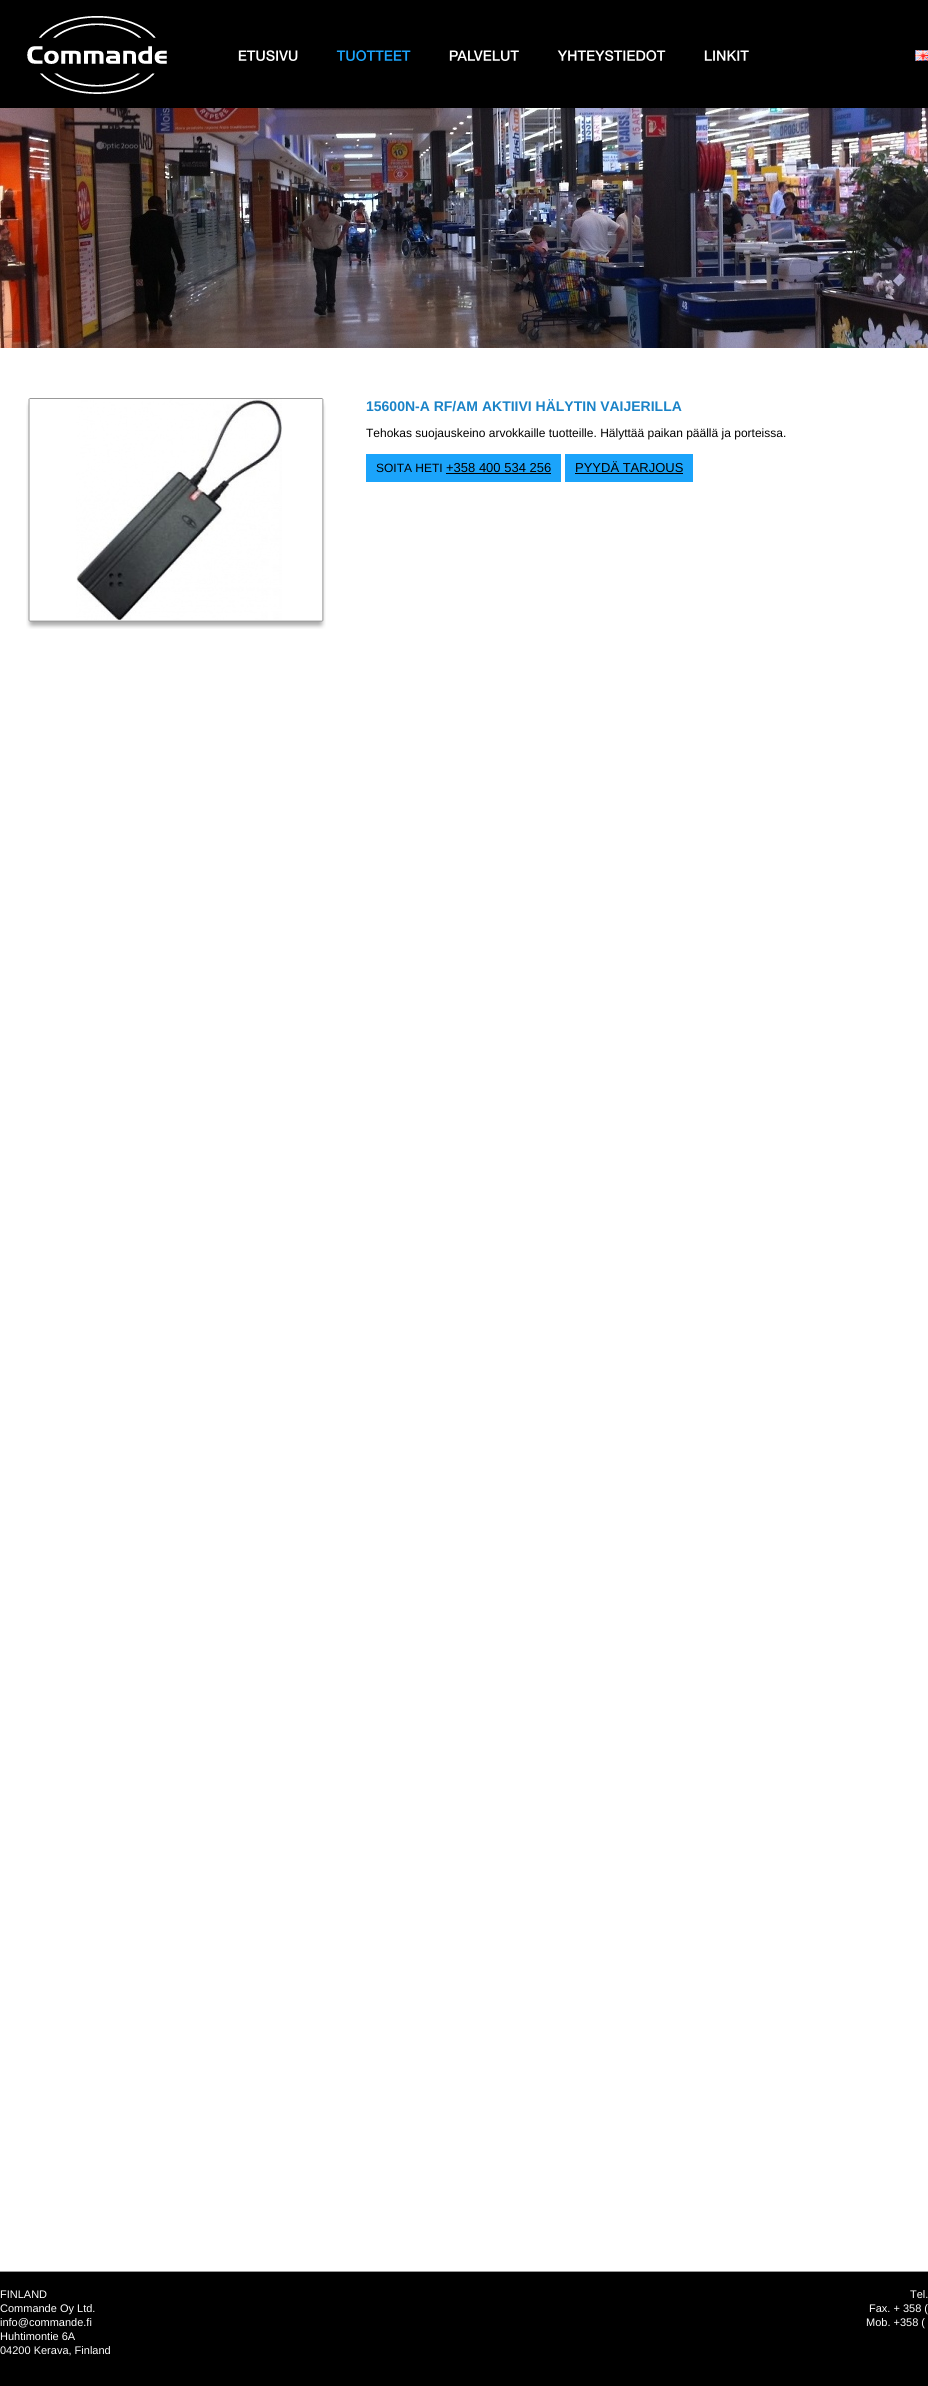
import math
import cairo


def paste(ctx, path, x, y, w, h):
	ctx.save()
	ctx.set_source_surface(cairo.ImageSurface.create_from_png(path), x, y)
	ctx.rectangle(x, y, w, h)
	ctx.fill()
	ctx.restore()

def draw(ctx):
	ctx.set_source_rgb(1, 1, 1)
	ctx.paint()
	ctx.set_source_rgb(0, 0, 0)
	ctx.rectangle(0, 0, 928, 108)
	ctx.fill()
	paste(ctx, 'media/1.png', 27, 16, 140, 78)
	paste(ctx, 'media/2.png', 238, 50, 60, 11)
	paste(ctx, 'media/3.png', 336, 50, 75, 11)
	paste(ctx, 'media/4.png', 449, 50, 70, 11)
	paste(ctx, 'media/5.png', 557, 50, 109, 11)
	paste(ctx, 'media/6.png', 704, 50, 45, 11)
	paste(ctx, 'media/7.png', 915, 50, 13, 11)
	paste(ctx, 'media/8.png', 0, 108, 928, 240)
	paste(ctx, 'media/9.png', 26, 398, 300, 231)
	paste(ctx, 'media/10.png', 76, 399, 206, 221)
	ctx.select_font_face('Liberation Sans', cairo.FONT_SLANT_NORMAL, cairo.FONT_WEIGHT_BOLD)
	ctx.set_font_size(14)
	ctx.set_source_rgb(0.102, 0.514, 0.78)
	ctx.move_to(366, 411)
	ctx.show_text('15600N-A RF/AM AKTIIVI HÄLYTIN VAIJERILLA')
	ctx.select_font_face('Liberation Sans')
	ctx.set_font_size(12)
	ctx.set_source_rgb(0, 0, 0)
	ctx.move_to(366, 437)
	ctx.show_text('Tehokas suojauskeino arvokkaille tuotteille. Hälyttää paikan päällä ja porteissa.')
	ctx.set_source_rgb(0.106, 0.643, 0.984)
	ctx.rectangle(366, 454, 195, 28)
	ctx.fill()
	ctx.set_source_rgb(0, 0, 0)
	ctx.move_to(376, 472)
	ctx.show_text('SOITA HETI')
	ctx.set_font_size(13)
	ctx.move_to(446, 472)
	ctx.show_text('+358 400 534 256')
	ctx.rectangle(446, 473, 105, 1)
	ctx.fill()
	ctx.set_source_rgb(0.106, 0.643, 0.984)
	ctx.rectangle(565, 454, 128, 28)
	ctx.fill()
	ctx.set_source_rgb(0, 0, 0)
	ctx.move_to(575, 472)
	ctx.show_text('PYYDÄ TARJOUS')
	ctx.rectangle(575, 473, 108, 1)
	ctx.fill()
	ctx.set_source_rgb(0.6, 0.6, 0.6)
	ctx.rectangle(0, 2271, 928, 1)
	ctx.fill()
	ctx.set_source_rgb(0, 0, 0)
	ctx.rectangle(0, 2272, 928, 114)
	ctx.fill()
	ctx.set_font_size(11)
	ctx.set_source_rgb(1, 1, 1)
	for x, y, s in [
		(0, 2298, 'FINLAND'),
		(0, 2312, 'Commande Oy Ltd.'),
		(0, 2326, 'info@commande.fi'),
		(0, 2340, 'Huhtimontie 6A'),
		(0, 2354, '04200 Kerava, Finland'),
		(910, 2298, 'Tel.'),
		(869, 2312, 'Fax. + 358 ('),
		(866, 2326, 'Mob. +358 ('),
	]:
		ctx.move_to(x, y)
		ctx.show_text(s)


surface = cairo.ImageSurface(cairo.FORMAT_RGB24, 928, 2386)
ctx = cairo.Context(surface)
options = cairo.FontOptions()
options.set_hint_metrics(cairo.HINT_METRICS_OFF)
options.set_hint_style(cairo.HINT_STYLE_NONE)
ctx.set_font_options(options)
ctx.set_miter_limit(4)
draw(ctx)
surface.write_to_png('image.png')
